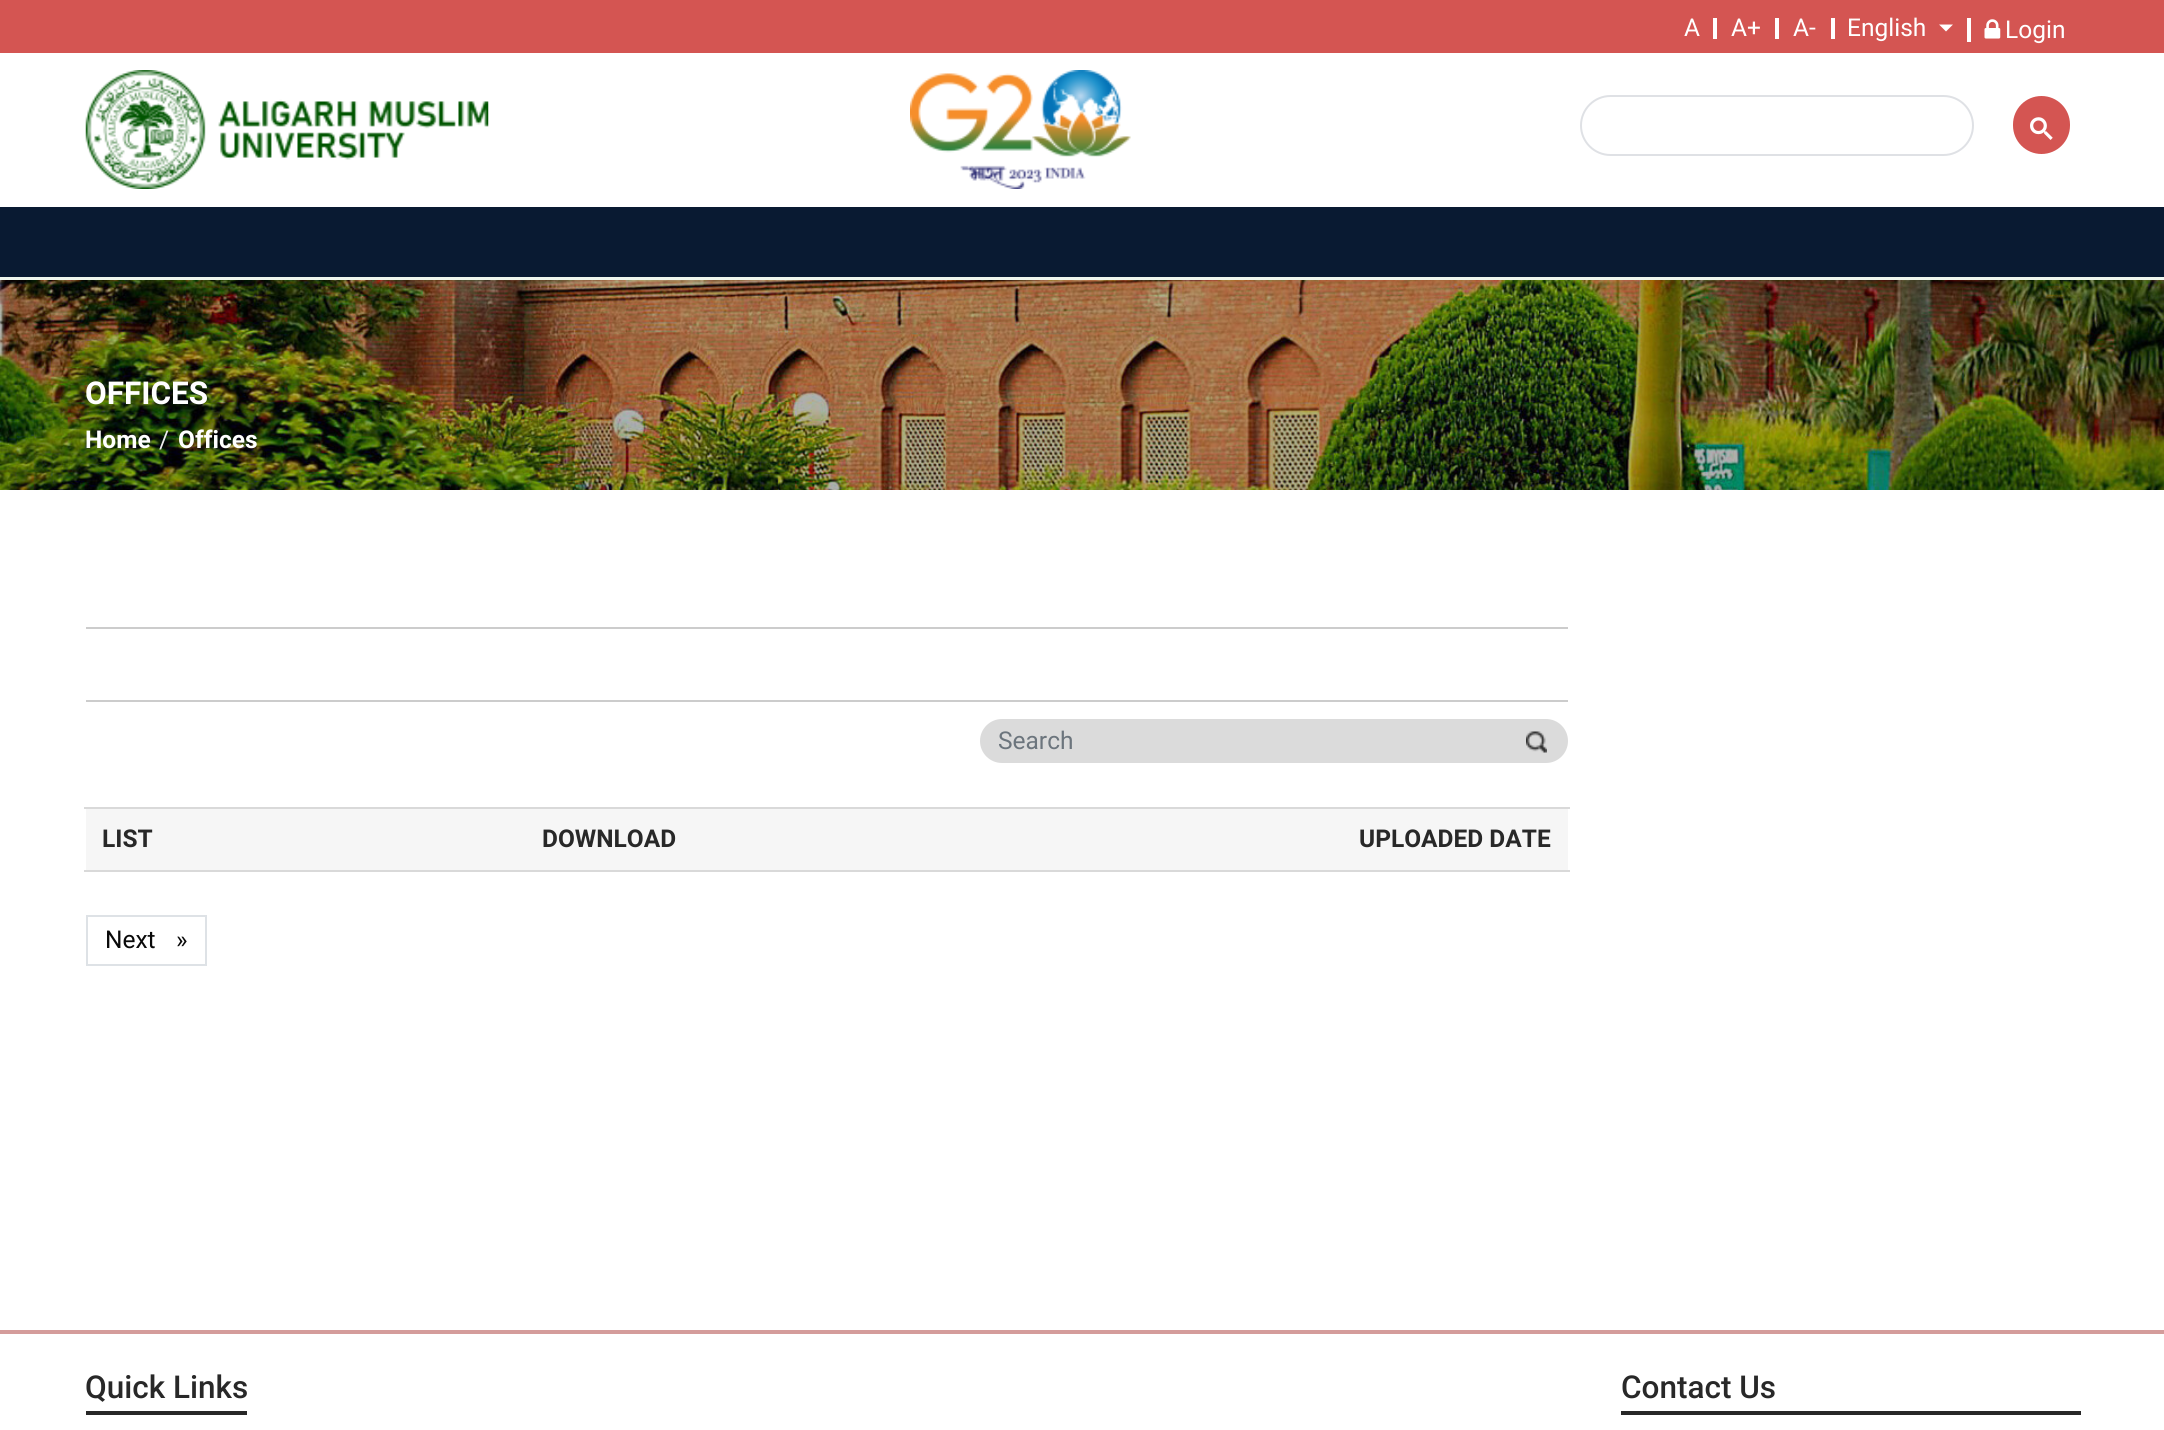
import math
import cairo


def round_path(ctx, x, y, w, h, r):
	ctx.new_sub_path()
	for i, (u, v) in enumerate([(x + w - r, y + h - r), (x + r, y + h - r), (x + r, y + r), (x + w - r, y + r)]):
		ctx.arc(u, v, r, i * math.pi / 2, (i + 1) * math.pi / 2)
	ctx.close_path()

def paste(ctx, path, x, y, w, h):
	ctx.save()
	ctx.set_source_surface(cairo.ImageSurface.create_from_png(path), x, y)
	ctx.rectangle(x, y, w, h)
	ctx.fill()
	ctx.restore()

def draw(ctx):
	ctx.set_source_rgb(1, 1, 1)
	ctx.paint()
	ctx.set_source_rgb(0.831, 0.333, 0.322)
	ctx.rectangle(0, 0, 2164, 53)
	ctx.fill()
	ctx.select_font_face('Roboto')
	ctx.set_font_size(24.5)
	ctx.set_source_rgb(1, 1, 1)
	ctx.move_to(1684, 36)
	ctx.show_text('A')
	ctx.rectangle(1713, 18, 4, 21)
	ctx.fill()
	ctx.move_to(1731, 36)
	ctx.show_text('A+')
	ctx.rectangle(1775, 18, 4, 21)
	ctx.fill()
	ctx.move_to(1793, 36)
	ctx.show_text('A-')
	ctx.rectangle(1831, 18, 4, 21)
	ctx.fill()
	ctx.move_to(1847, 36)
	ctx.show_text('English')
	ctx.new_path()
	ctx.move_to(1939, 24.5)
	ctx.line_to(1953, 24.5)
	ctx.line_to(1946, 31.5)
	ctx.close_path()
	ctx.fill()
	ctx.rectangle(1967, 18, 4, 24)
	ctx.fill()
	paste(ctx, 'media/1.png', 1984, 19, 17, 20)
	ctx.move_to(2005, 38)
	ctx.show_text('Login')
	paste(ctx, 'media/2.png', 85, 70, 404, 119)
	paste(ctx, 'media/3.png', 910, 70, 221, 119)
	round_path(ctx, 1581, 96, 392, 59, 29.5)
	ctx.set_source_rgb(0.875, 0.882, 0.898)
	ctx.stroke()
	ctx.set_source_rgb(0.831, 0.333, 0.322)
	round_path(ctx, 2013, 96, 57, 58, 28.5)
	ctx.fill()
	paste(ctx, 'media/4.png', 2030, 117, 23, 23)
	ctx.set_source_rgb(0.039, 0.102, 0.196)
	ctx.rectangle(0, 207, 2164, 70)
	ctx.fill()
	ctx.set_source_rgb(0.937, 0.965, 0.937)
	ctx.rectangle(0, 277, 2164, 3)
	ctx.fill()
	paste(ctx, 'media/5.png', 0, 280, 2164, 210)
	ctx.select_font_face('Roboto', cairo.FONT_SLANT_NORMAL, cairo.FONT_WEIGHT_BOLD)
	ctx.set_font_size(31.5)
	ctx.set_source_rgb(1, 1, 1)
	ctx.move_to(85, 404)
	ctx.show_text('OFFICES')
	ctx.set_font_size(24.5)
	ctx.move_to(85, 448)
	ctx.show_text('Home')
	ctx.select_font_face('Roboto')
	ctx.set_source_rgb(0.933, 0.933, 0.933)
	ctx.move_to(159, 448)
	ctx.show_text('/')
	ctx.select_font_face('Roboto', cairo.FONT_SLANT_NORMAL, cairo.FONT_WEIGHT_BOLD)
	ctx.set_source_rgb(1, 1, 1)
	ctx.move_to(178, 448)
	ctx.show_text('Offices')
	ctx.set_source_rgb(0.8, 0.8, 0.8)
	ctx.rectangle(86, 627, 1482, 2)
	ctx.fill()
	ctx.rectangle(86, 700, 1482, 2)
	ctx.fill()
	ctx.set_source_rgb(0.859, 0.859, 0.859)
	round_path(ctx, 980, 719, 588, 44, 22)
	ctx.fill()
	ctx.select_font_face('Roboto')
	ctx.set_source_rgb(0.424, 0.459, 0.49)
	ctx.move_to(998, 749)
	ctx.show_text('Search')
	paste(ctx, 'media/6.png', 1526, 731, 21, 22)
	ctx.set_source_rgb(0.851, 0.851, 0.851)
	ctx.rectangle(84, 870, 1486, 2)
	ctx.fill()
	ctx.set_source_rgb(0.961, 0.961, 0.961)
	ctx.rectangle(86, 809, 1482, 61)
	ctx.fill()
	ctx.select_font_face('Roboto', cairo.FONT_SLANT_NORMAL, cairo.FONT_WEIGHT_BOLD)
	ctx.set_source_rgb(0.157, 0.157, 0.157)
	ctx.move_to(102, 847)
	ctx.show_text('LIST')
	ctx.move_to(542, 847)
	ctx.show_text('DOWNLOAD')
	ctx.set_source_rgb(0.851, 0.851, 0.851)
	ctx.rectangle(84, 807, 1486, 2)
	ctx.fill()
	ctx.set_source_rgb(0.157, 0.157, 0.157)
	ctx.move_to(1359, 847)
	ctx.show_text('UPLOADED DATE')
	ctx.rectangle(87, 916, 119, 49)
	ctx.set_source_rgb(0.871, 0.886, 0.902)
	ctx.stroke()
	ctx.select_font_face('Roboto')
	ctx.set_source_rgb(0.039, 0.039, 0.039)
	ctx.move_to(105, 948)
	ctx.show_text('Next')
	ctx.move_to(176, 948)
	ctx.show_text('»')
	ctx.set_source_rgb(0.831, 0.612, 0.608)
	ctx.rectangle(0, 1330, 2164, 4)
	ctx.fill()
	ctx.select_font_face('Roboto Medium')
	ctx.set_font_size(31.5)
	ctx.set_source_rgb(0.157, 0.157, 0.157)
	ctx.move_to(85, 1398)
	ctx.show_text('Quick Links')
	ctx.rectangle(86, 1411, 161, 4)
	ctx.fill()
	ctx.move_to(1621, 1398)
	ctx.show_text('Contact Us')
	ctx.rectangle(1621, 1411, 460, 4)
	ctx.fill()


surface = cairo.ImageSurface(cairo.FORMAT_RGB24, 2164, 1430)
ctx = cairo.Context(surface)
options = cairo.FontOptions()
options.set_hint_metrics(cairo.HINT_METRICS_OFF)
options.set_hint_style(cairo.HINT_STYLE_NONE)
ctx.set_font_options(options)
ctx.set_miter_limit(4)
draw(ctx)
surface.write_to_png('image.png')
